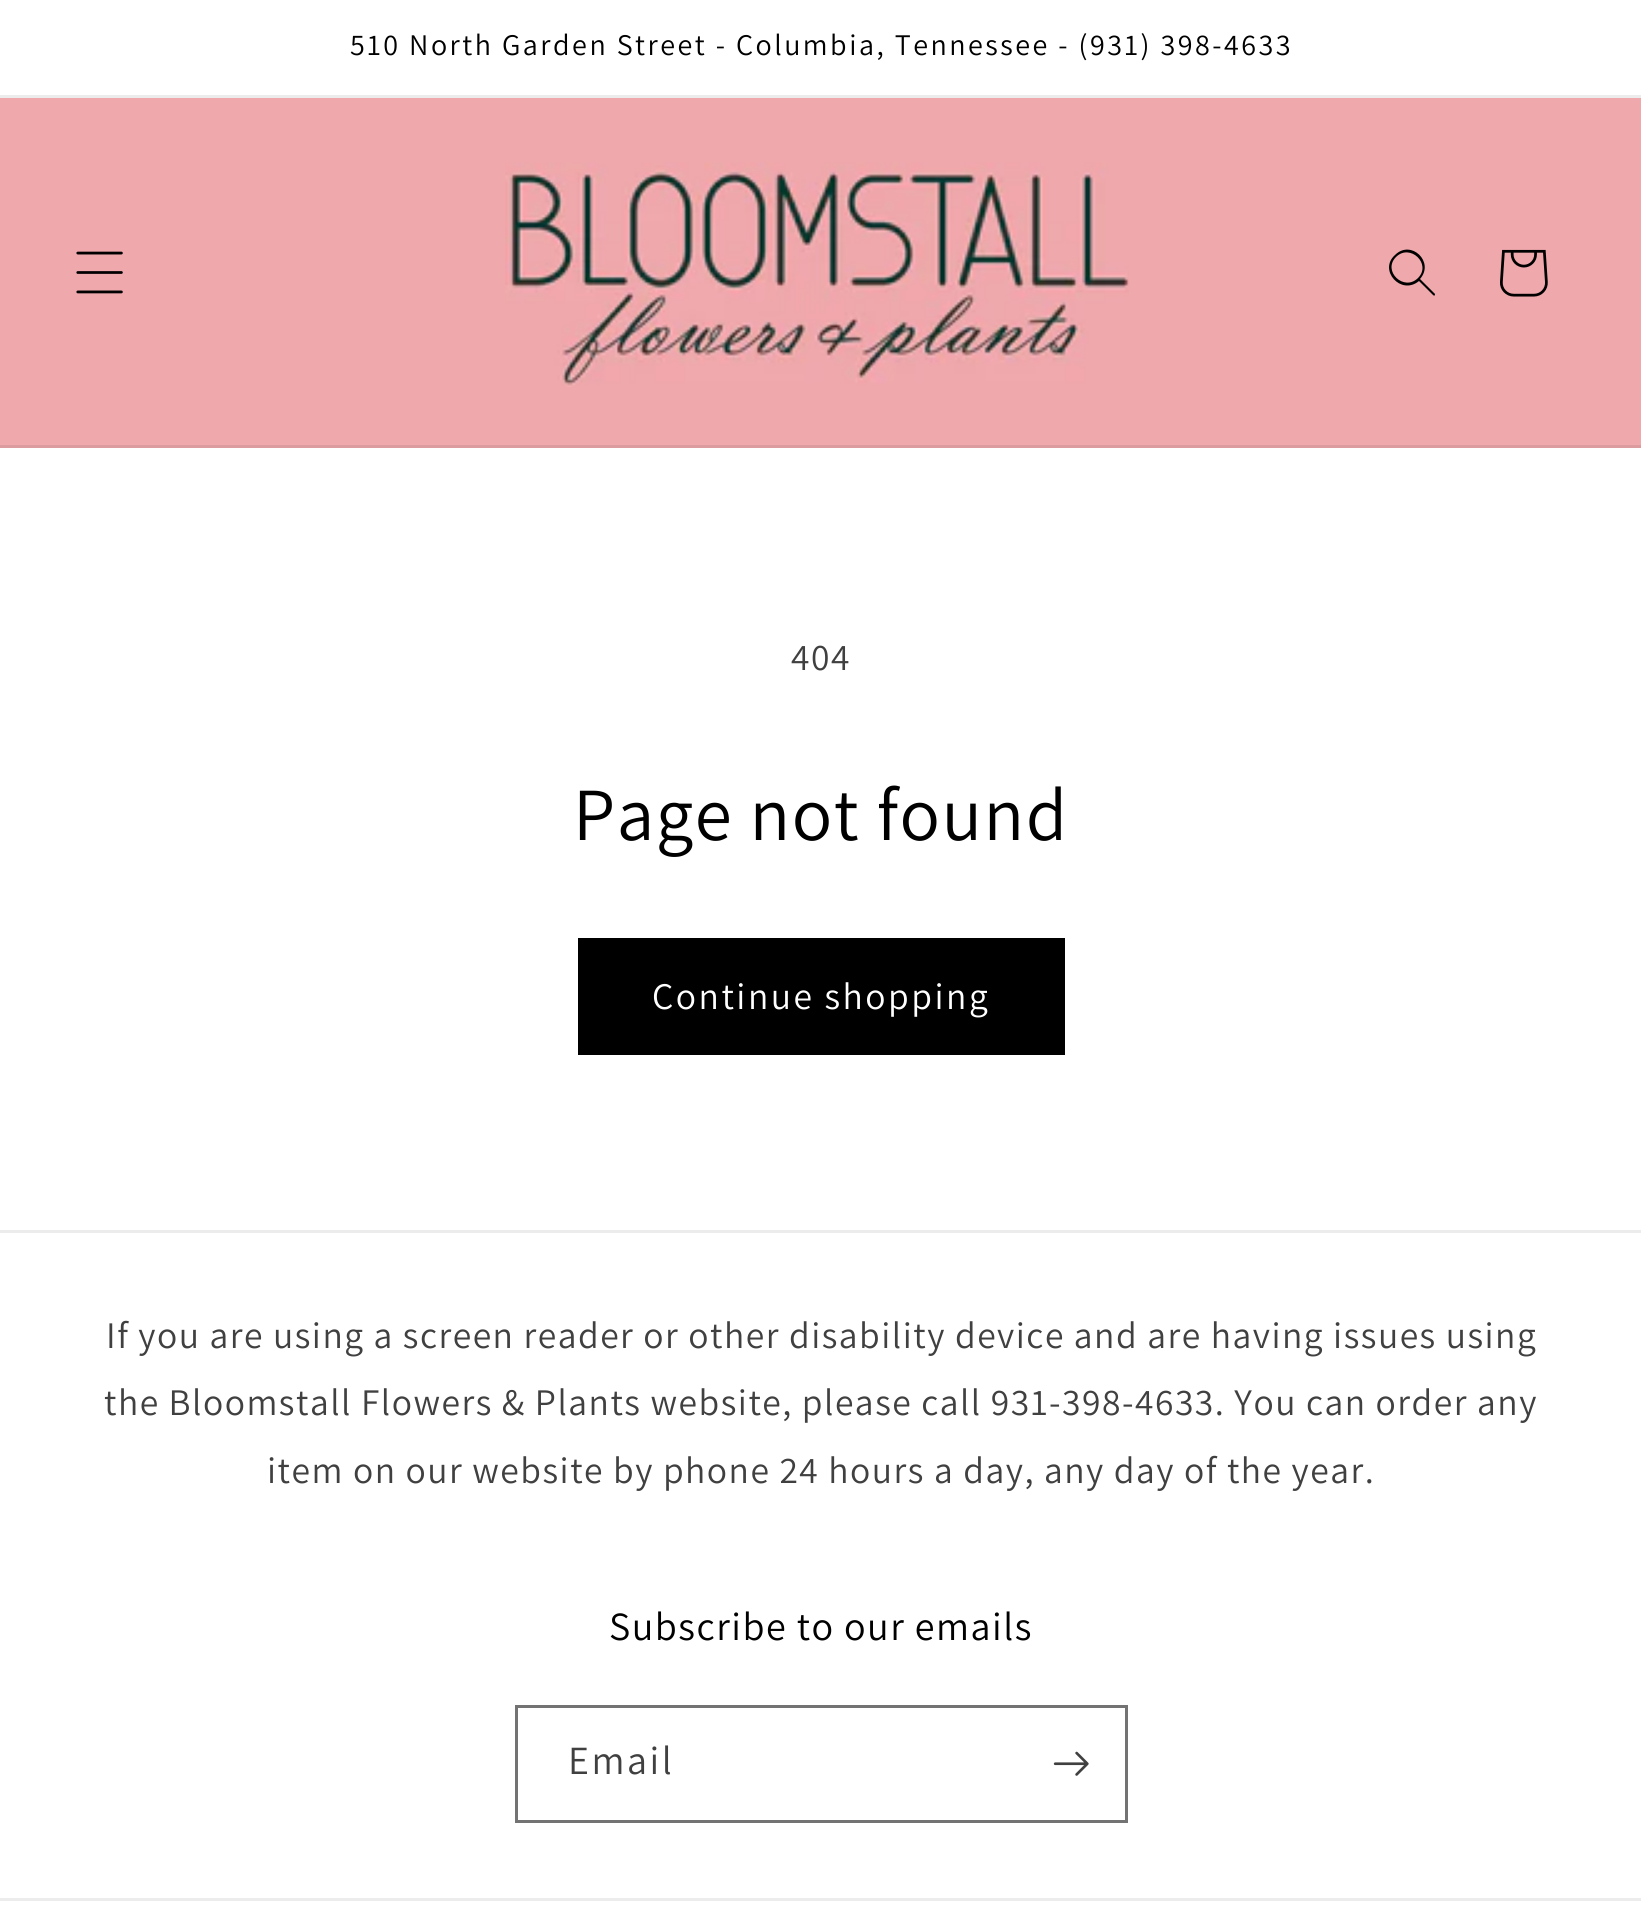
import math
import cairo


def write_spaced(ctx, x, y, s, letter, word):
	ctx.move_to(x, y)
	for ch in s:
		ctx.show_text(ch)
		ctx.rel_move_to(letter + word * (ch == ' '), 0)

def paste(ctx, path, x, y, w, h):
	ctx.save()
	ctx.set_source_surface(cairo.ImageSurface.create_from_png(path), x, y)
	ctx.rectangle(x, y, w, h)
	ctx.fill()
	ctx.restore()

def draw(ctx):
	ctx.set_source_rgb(1, 1, 1)
	ctx.paint()
	ctx.set_source_rgb(0.922, 0.922, 0.922)
	ctx.rectangle(0, 95, 1641, 3)
	ctx.fill()
	ctx.select_font_face('Assistant')
	ctx.set_font_size(30)
	ctx.set_source_rgb(0, 0, 0)
	write_spaced(ctx, 350, 55, '510 North Garden Street - Columbia, Tennessee - (931) 398-4633', 2.5, 0)
	ctx.set_source_rgb(0.937, 0.659, 0.675)
	ctx.rectangle(0, 98, 1641, 347)
	ctx.fill()
	ctx.set_source_rgb(0.863, 0.608, 0.62)
	ctx.rectangle(0, 445, 1641, 3)
	ctx.fill()
	paste(ctx, 'media/1.png', 76, 251, 47, 43)
	paste(ctx, 'media/2.png', 505, 162, 624, 225)
	ctx.set_source_rgb(0, 0, 0)
	ctx.set_fill_rule(cairo.FILL_RULE_EVEN_ODD)
	ctx.new_path()
	ctx.move_to(1418, 278)
	ctx.curve_to(1404, 292, 1382, 271, 1396, 257)
	ctx.curve_to(1410, 243, 1432, 264, 1418, 278)
	ctx.move_to(1419, 281)
	ctx.curve_to(1401, 296, 1378, 270, 1395, 255)
	ctx.curve_to(1411, 239, 1435, 262, 1420, 279)
	ctx.line_to(1435, 294)
	ctx.curve_to(1435, 296, 1434, 296, 1433, 295)
	ctx.close_path()
	ctx.fill()
	paste(ctx, 'media/3.png', 1500, 249, 48, 48)
	ctx.set_font_size(37.5)
	ctx.set_source_rgb(0.251, 0.251, 0.251)
	write_spaced(ctx, 791, 670, '404', 1.5, 0)
	ctx.set_font_size(75)
	ctx.set_source_rgb(0, 0, 0)
	write_spaced(ctx, 573, 840, 'Page not found', 1.5, 0)
	ctx.rectangle(578, 938, 487, 117)
	ctx.fill()
	ctx.set_font_size(37.5)
	ctx.set_source_rgb(1, 1, 1)
	write_spaced(ctx, 652, 1009, 'Continue shopping', 2.5, 0)
	ctx.set_source_rgb(0.922, 0.922, 0.922)
	ctx.rectangle(0, 1230, 1641, 3)
	ctx.fill()
	ctx.set_source_rgb(0.251, 0.251, 0.251)
	for x, y, s in [
		(106, 1348, 'If you are using a screen reader or other disability device and are having issues using'),
		(104, 1415, 'the Bloomstall Flowers & Plants website, please call 931-398-4633. You can order any'),
		(267, 1483, 'item on our website by phone 24 hours a day, any day of the year.'),
	]:
		write_spaced(ctx, x, y, s, 1.5, 0)
	ctx.set_font_size(40)
	ctx.set_source_rgb(0, 0, 0)
	write_spaced(ctx, 609, 1640, 'Subscribe to our emails', 1.5, 0)
	ctx.rectangle(516.5, 1706.5, 610, 115)
	ctx.set_source_rgb(0.451, 0.451, 0.451)
	ctx.set_line_width(3)
	ctx.stroke()
	ctx.set_source_rgb(0.251, 0.251, 0.251)
	write_spaced(ctx, 568, 1774, 'Email', 2.5, 0)
	paste(ctx, 'media/4.png', 1053, 1751, 36, 25)
	ctx.set_source_rgb(0.922, 0.922, 0.922)
	ctx.rectangle(0, 1898, 1641, 3)
	ctx.fill()


surface = cairo.ImageSurface(cairo.FORMAT_RGB24, 1641, 1920)
ctx = cairo.Context(surface)
options = cairo.FontOptions()
options.set_hint_metrics(cairo.HINT_METRICS_OFF)
options.set_hint_style(cairo.HINT_STYLE_NONE)
ctx.set_font_options(options)
ctx.set_miter_limit(4)
draw(ctx)
surface.write_to_png('image.png')
